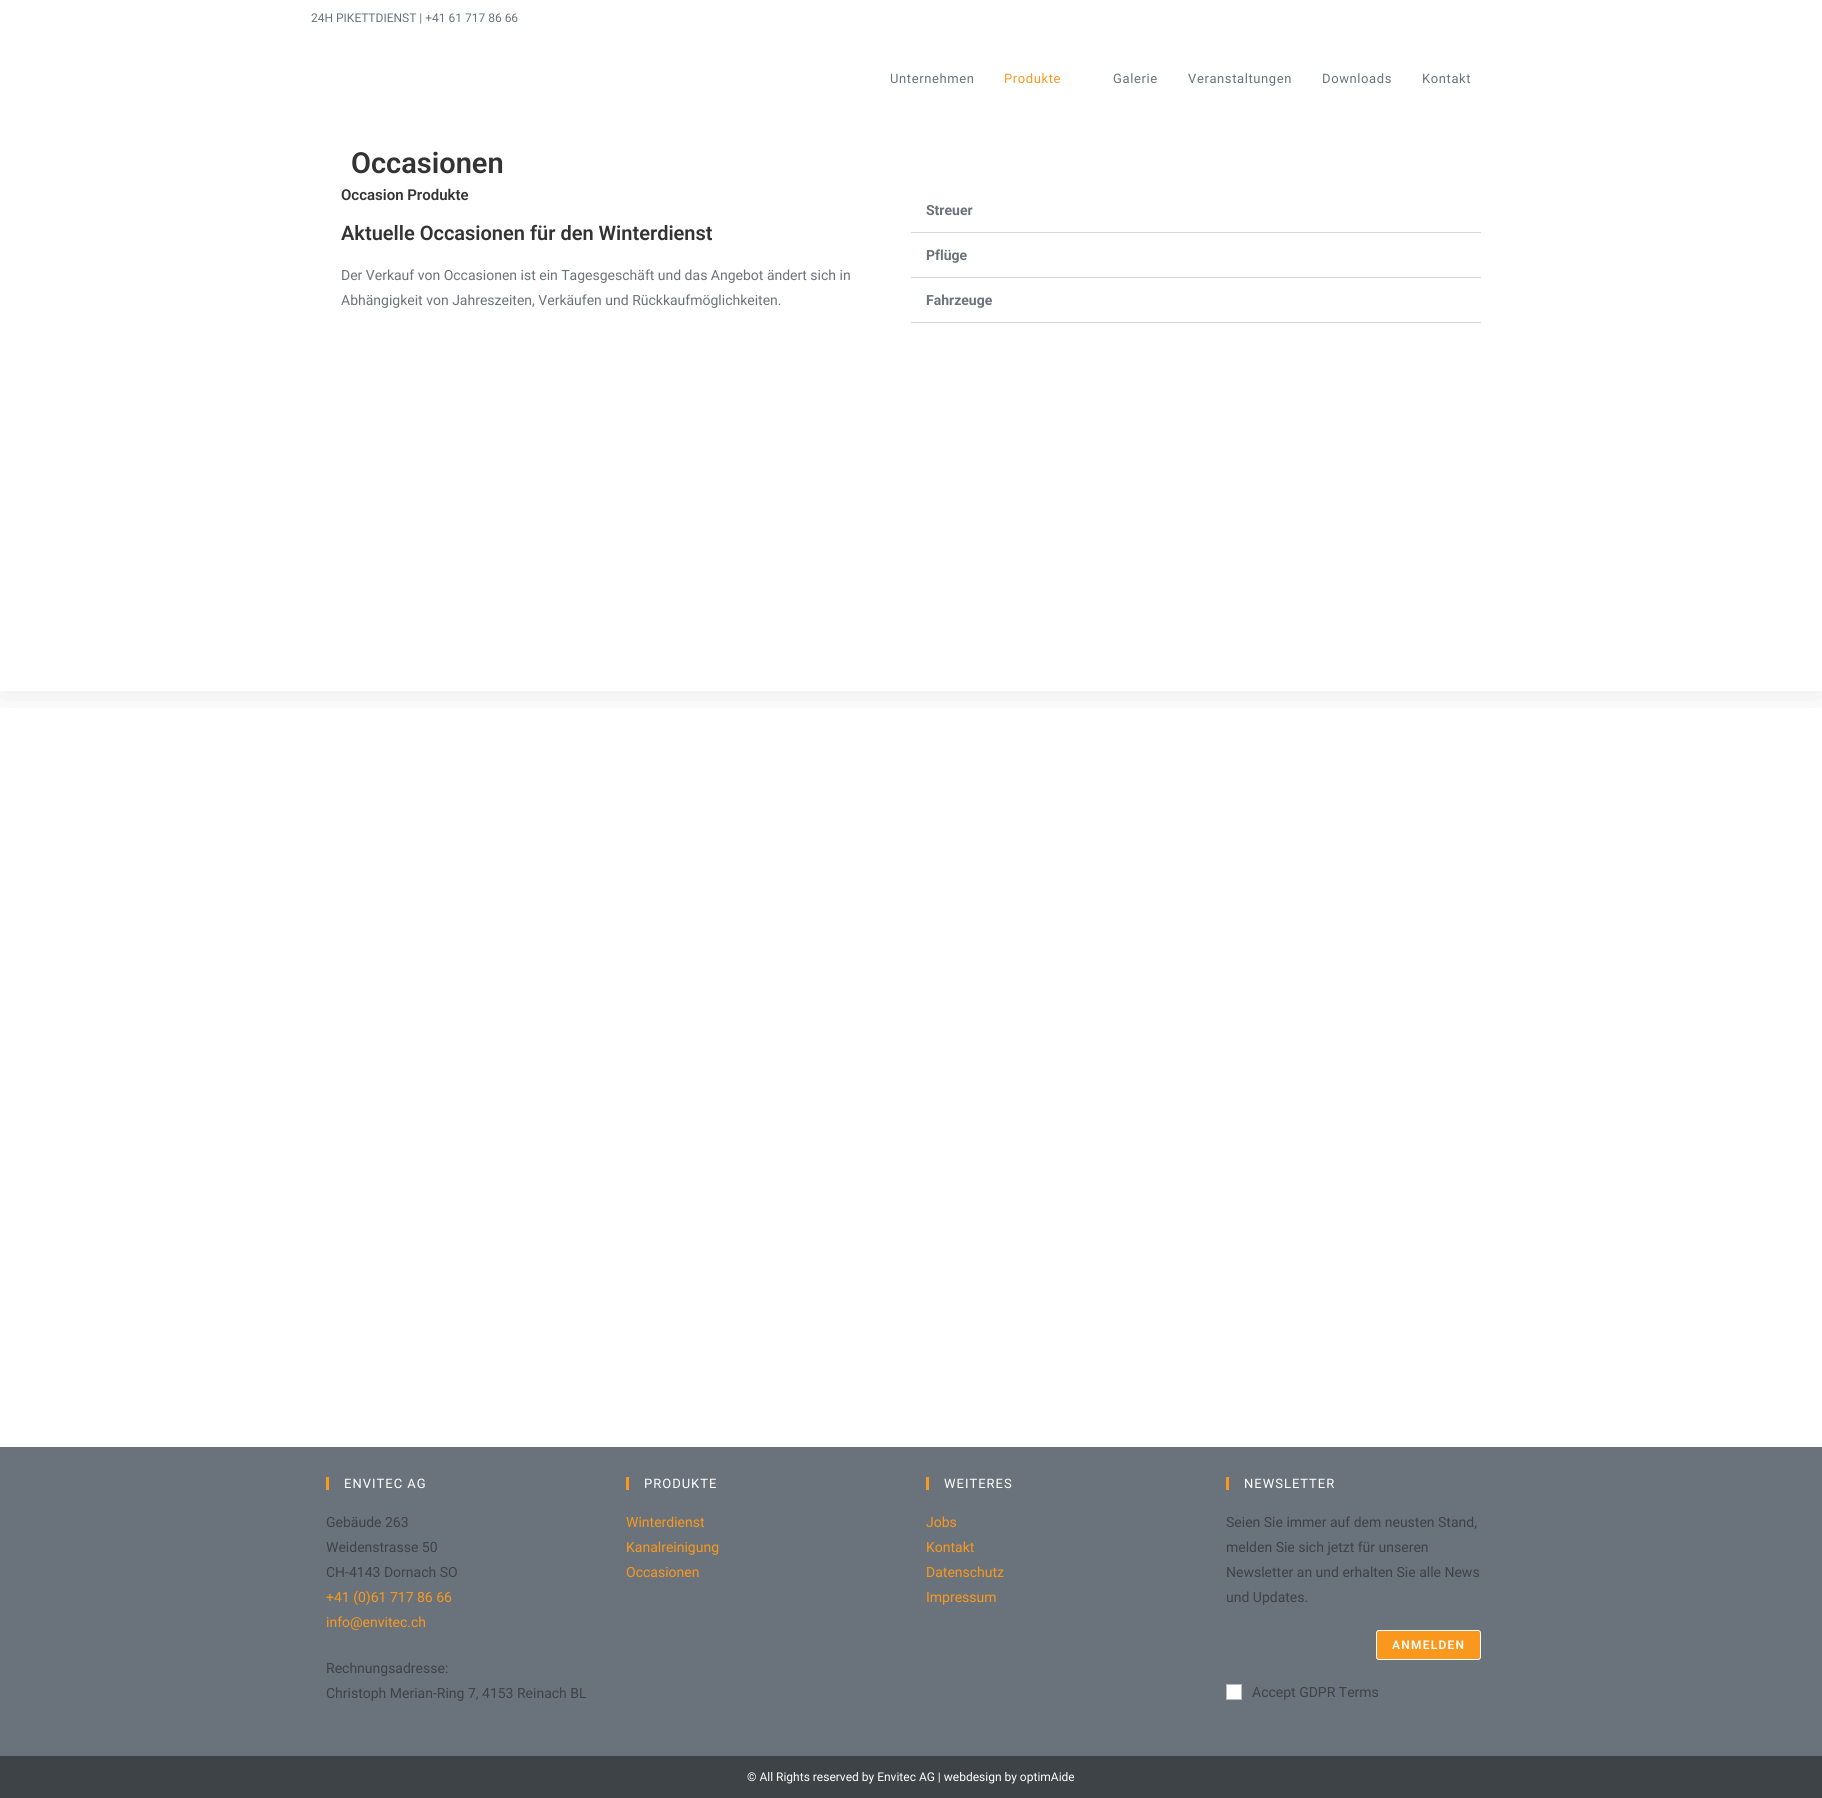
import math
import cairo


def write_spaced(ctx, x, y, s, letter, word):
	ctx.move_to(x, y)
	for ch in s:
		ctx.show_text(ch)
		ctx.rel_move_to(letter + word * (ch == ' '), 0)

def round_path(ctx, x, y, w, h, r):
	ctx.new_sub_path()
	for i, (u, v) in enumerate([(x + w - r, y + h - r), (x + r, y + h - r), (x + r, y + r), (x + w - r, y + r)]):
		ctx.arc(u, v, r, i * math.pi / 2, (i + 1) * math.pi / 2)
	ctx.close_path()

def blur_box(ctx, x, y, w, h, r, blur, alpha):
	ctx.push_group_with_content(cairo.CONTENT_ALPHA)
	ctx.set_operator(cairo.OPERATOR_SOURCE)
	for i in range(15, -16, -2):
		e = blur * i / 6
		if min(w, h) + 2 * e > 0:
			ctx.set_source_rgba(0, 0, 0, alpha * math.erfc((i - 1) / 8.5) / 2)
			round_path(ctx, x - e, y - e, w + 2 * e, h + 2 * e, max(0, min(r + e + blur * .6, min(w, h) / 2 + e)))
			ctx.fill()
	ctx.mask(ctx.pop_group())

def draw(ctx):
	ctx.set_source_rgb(1, 1, 1)
	ctx.paint()
	ctx.select_font_face('Roboto')
	ctx.set_font_size(12)
	ctx.set_source_rgb(0.416, 0.451, 0.482)
	ctx.move_to(311, 22)
	ctx.show_text('24H PIKETTDIENST | +41 61 717 86 66')
	ctx.save()
	ctx.rectangle(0, 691, 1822, 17)
	ctx.clip()
	ctx.set_source_rgb(0, 0, 0)
	blur_box(ctx, 0, 139, 1822, 552, 0, 20, 0.1)
	ctx.restore()
	ctx.set_source_rgb(1, 1, 1)
	ctx.rectangle(0, 113, 1822, 26)
	ctx.fill()
	ctx.set_font_size(13)
	ctx.set_source_rgb(0.416, 0.451, 0.482)
	write_spaced(ctx, 890, 83, 'Unternehmen', 0.6, 0)
	ctx.set_source_rgb(0.973, 0.596, 0.114)
	write_spaced(ctx, 1004, 83, 'Produkte', 0.6, 0)
	ctx.set_source_rgb(0.416, 0.451, 0.482)
	for x, y, s in [
		(1113, 83, 'Galerie'),
		(1188, 83, 'Veranstaltungen'),
		(1322, 83, 'Downloads'),
		(1422, 83, 'Kontakt'),
	]:
		write_spaced(ctx, x, y, s, 0.6, 0)
	ctx.select_font_face('Roboto SemiBold')
	ctx.set_font_size(29)
	ctx.set_source_rgb(0.2, 0.2, 0.2)
	ctx.move_to(351, 173)
	ctx.show_text('Occasionen')
	ctx.set_font_size(15)
	ctx.move_to(341, 200)
	ctx.show_text('Occasion Produkte')
	ctx.set_font_size(20)
	ctx.move_to(341, 240)
	ctx.show_text('Aktuelle Occasionen für den Winterdienst')
	ctx.select_font_face('Roboto')
	ctx.set_font_size(14)
	ctx.set_source_rgb(0.416, 0.451, 0.482)
	ctx.move_to(341, 280)
	ctx.show_text('Der Verkauf von Occasionen ist ein Tagesgeschäft und das Angebot ändert sich in')
	ctx.move_to(341, 305)
	ctx.show_text('Abhängigkeit von Jahreszeiten, Verkäufen und Rückkaufmöglichkeiten.')
	ctx.set_source_rgb(0.835, 0.847, 0.863)
	ctx.rectangle(911, 232, 570, 1)
	ctx.fill()
	ctx.select_font_face('Roboto', cairo.FONT_SLANT_NORMAL, cairo.FONT_WEIGHT_BOLD)
	ctx.set_source_rgb(0.416, 0.451, 0.482)
	ctx.move_to(926, 215)
	ctx.show_text('Streuer')
	ctx.set_source_rgb(0.835, 0.847, 0.863)
	ctx.rectangle(911, 277, 570, 1)
	ctx.fill()
	ctx.set_source_rgb(0.416, 0.451, 0.482)
	ctx.move_to(926, 260)
	ctx.show_text('Pflüge')
	ctx.set_source_rgb(0.835, 0.847, 0.863)
	ctx.rectangle(911, 322, 570, 1)
	ctx.fill()
	ctx.set_source_rgb(0.416, 0.451, 0.482)
	ctx.move_to(926, 305)
	ctx.show_text('Fahrzeuge')
	ctx.rectangle(0, 1447, 1822, 309)
	ctx.fill()
	ctx.set_source_rgb(0.973, 0.596, 0.114)
	ctx.rectangle(326, 1477, 3, 13)
	ctx.fill()
	ctx.select_font_face('Roboto')
	ctx.set_font_size(13)
	ctx.set_source_rgb(1, 1, 1)
	write_spaced(ctx, 344, 1488, 'ENVITEC AG', 1, 0)
	ctx.set_font_size(14)
	ctx.set_source_rgb(0.239, 0.263, 0.278)
	for x, y, s in [
		(326, 1527, 'Gebäude 263'),
		(326, 1552, 'Weidenstrasse 50'),
		(326, 1577, 'CH-4143 Dornach SO'),
	]:
		ctx.move_to(x, y)
		ctx.show_text(s)
	ctx.set_source_rgb(0.973, 0.596, 0.114)
	ctx.move_to(326, 1602)
	ctx.show_text('+41 (0)61 717 86 66')
	ctx.move_to(326, 1627)
	ctx.show_text('info@envitec.ch')
	ctx.set_source_rgb(0.239, 0.263, 0.278)
	ctx.move_to(326, 1673)
	ctx.show_text('Rechnungsadresse:')
	ctx.move_to(326, 1698)
	ctx.show_text('Christoph Merian-Ring 7, 4153 Reinach BL')
	ctx.set_source_rgb(0.973, 0.596, 0.114)
	ctx.rectangle(626, 1477, 3, 13)
	ctx.fill()
	ctx.set_font_size(13)
	ctx.set_source_rgb(1, 1, 1)
	write_spaced(ctx, 644, 1488, 'PRODUKTE', 1, 0)
	ctx.set_font_size(14)
	ctx.set_source_rgb(0.973, 0.596, 0.114)
	for x, y, s in [
		(626, 1527, 'Winterdienst'),
		(626, 1552, 'Kanalreinigung'),
		(626, 1577, 'Occasionen'),
	]:
		ctx.move_to(x, y)
		ctx.show_text(s)
	ctx.rectangle(926, 1477, 3, 13)
	ctx.fill()
	ctx.set_font_size(13)
	ctx.set_source_rgb(1, 1, 1)
	write_spaced(ctx, 944, 1488, 'WEITERES', 1, 0)
	ctx.set_font_size(14)
	ctx.set_source_rgb(0.973, 0.596, 0.114)
	for x, y, s in [
		(926, 1527, 'Jobs'),
		(926, 1552, 'Kontakt'),
		(926, 1577, 'Datenschutz'),
		(926, 1602, 'Impressum'),
	]:
		ctx.move_to(x, y)
		ctx.show_text(s)
	ctx.rectangle(1226, 1477, 3, 13)
	ctx.fill()
	ctx.set_font_size(13)
	ctx.set_source_rgb(1, 1, 1)
	write_spaced(ctx, 1244, 1488, 'NEWSLETTER', 1, 0)
	ctx.set_font_size(14)
	ctx.set_source_rgb(0.239, 0.263, 0.278)
	for x, y, s in [
		(1226, 1527, 'Seien Sie immer auf dem neusten Stand,'),
		(1226, 1552, 'melden Sie sich jetzt für unseren'),
		(1226, 1577, 'Newsletter an und erhalten Sie alle News'),
		(1226, 1602, 'und Updates.'),
	]:
		ctx.move_to(x, y)
		ctx.show_text(s)
	ctx.set_source_rgb(0.973, 0.596, 0.114)
	round_path(ctx, 1376.5, 1630.5, 104, 29, 2.5)
	ctx.fill_preserve()
	ctx.set_source_rgb(1, 1, 1)
	ctx.set_line_width(1)
	ctx.stroke()
	ctx.select_font_face('Roboto SemiBold')
	ctx.set_font_size(12)
	write_spaced(ctx, 1392, 1649, 'ANMELDEN', 1.25, 0)
	ctx.rectangle(1226.5, 1684.5, 15, 15)
	ctx.fill_preserve()
	ctx.set_source_rgb(0.733, 0.733, 0.733)
	ctx.stroke()
	ctx.select_font_face('Roboto')
	ctx.set_font_size(14)
	ctx.set_source_rgb(0.239, 0.263, 0.278)
	ctx.move_to(1252, 1697)
	ctx.show_text('Accept GDPR Terms')
	ctx.rectangle(0, 1756, 1822, 42)
	ctx.fill()
	ctx.set_font_size(12)
	ctx.set_source_rgb(1, 1, 1)
	ctx.move_to(747, 1781)
	ctx.show_text('© All Rights reserved by Envitec AG | webdesign by optimAide')


surface = cairo.ImageSurface(cairo.FORMAT_RGB24, 1822, 1798)
ctx = cairo.Context(surface)
options = cairo.FontOptions()
options.set_hint_metrics(cairo.HINT_METRICS_OFF)
options.set_hint_style(cairo.HINT_STYLE_NONE)
ctx.set_font_options(options)
ctx.set_miter_limit(4)
draw(ctx)
surface.write_to_png('image.png')
